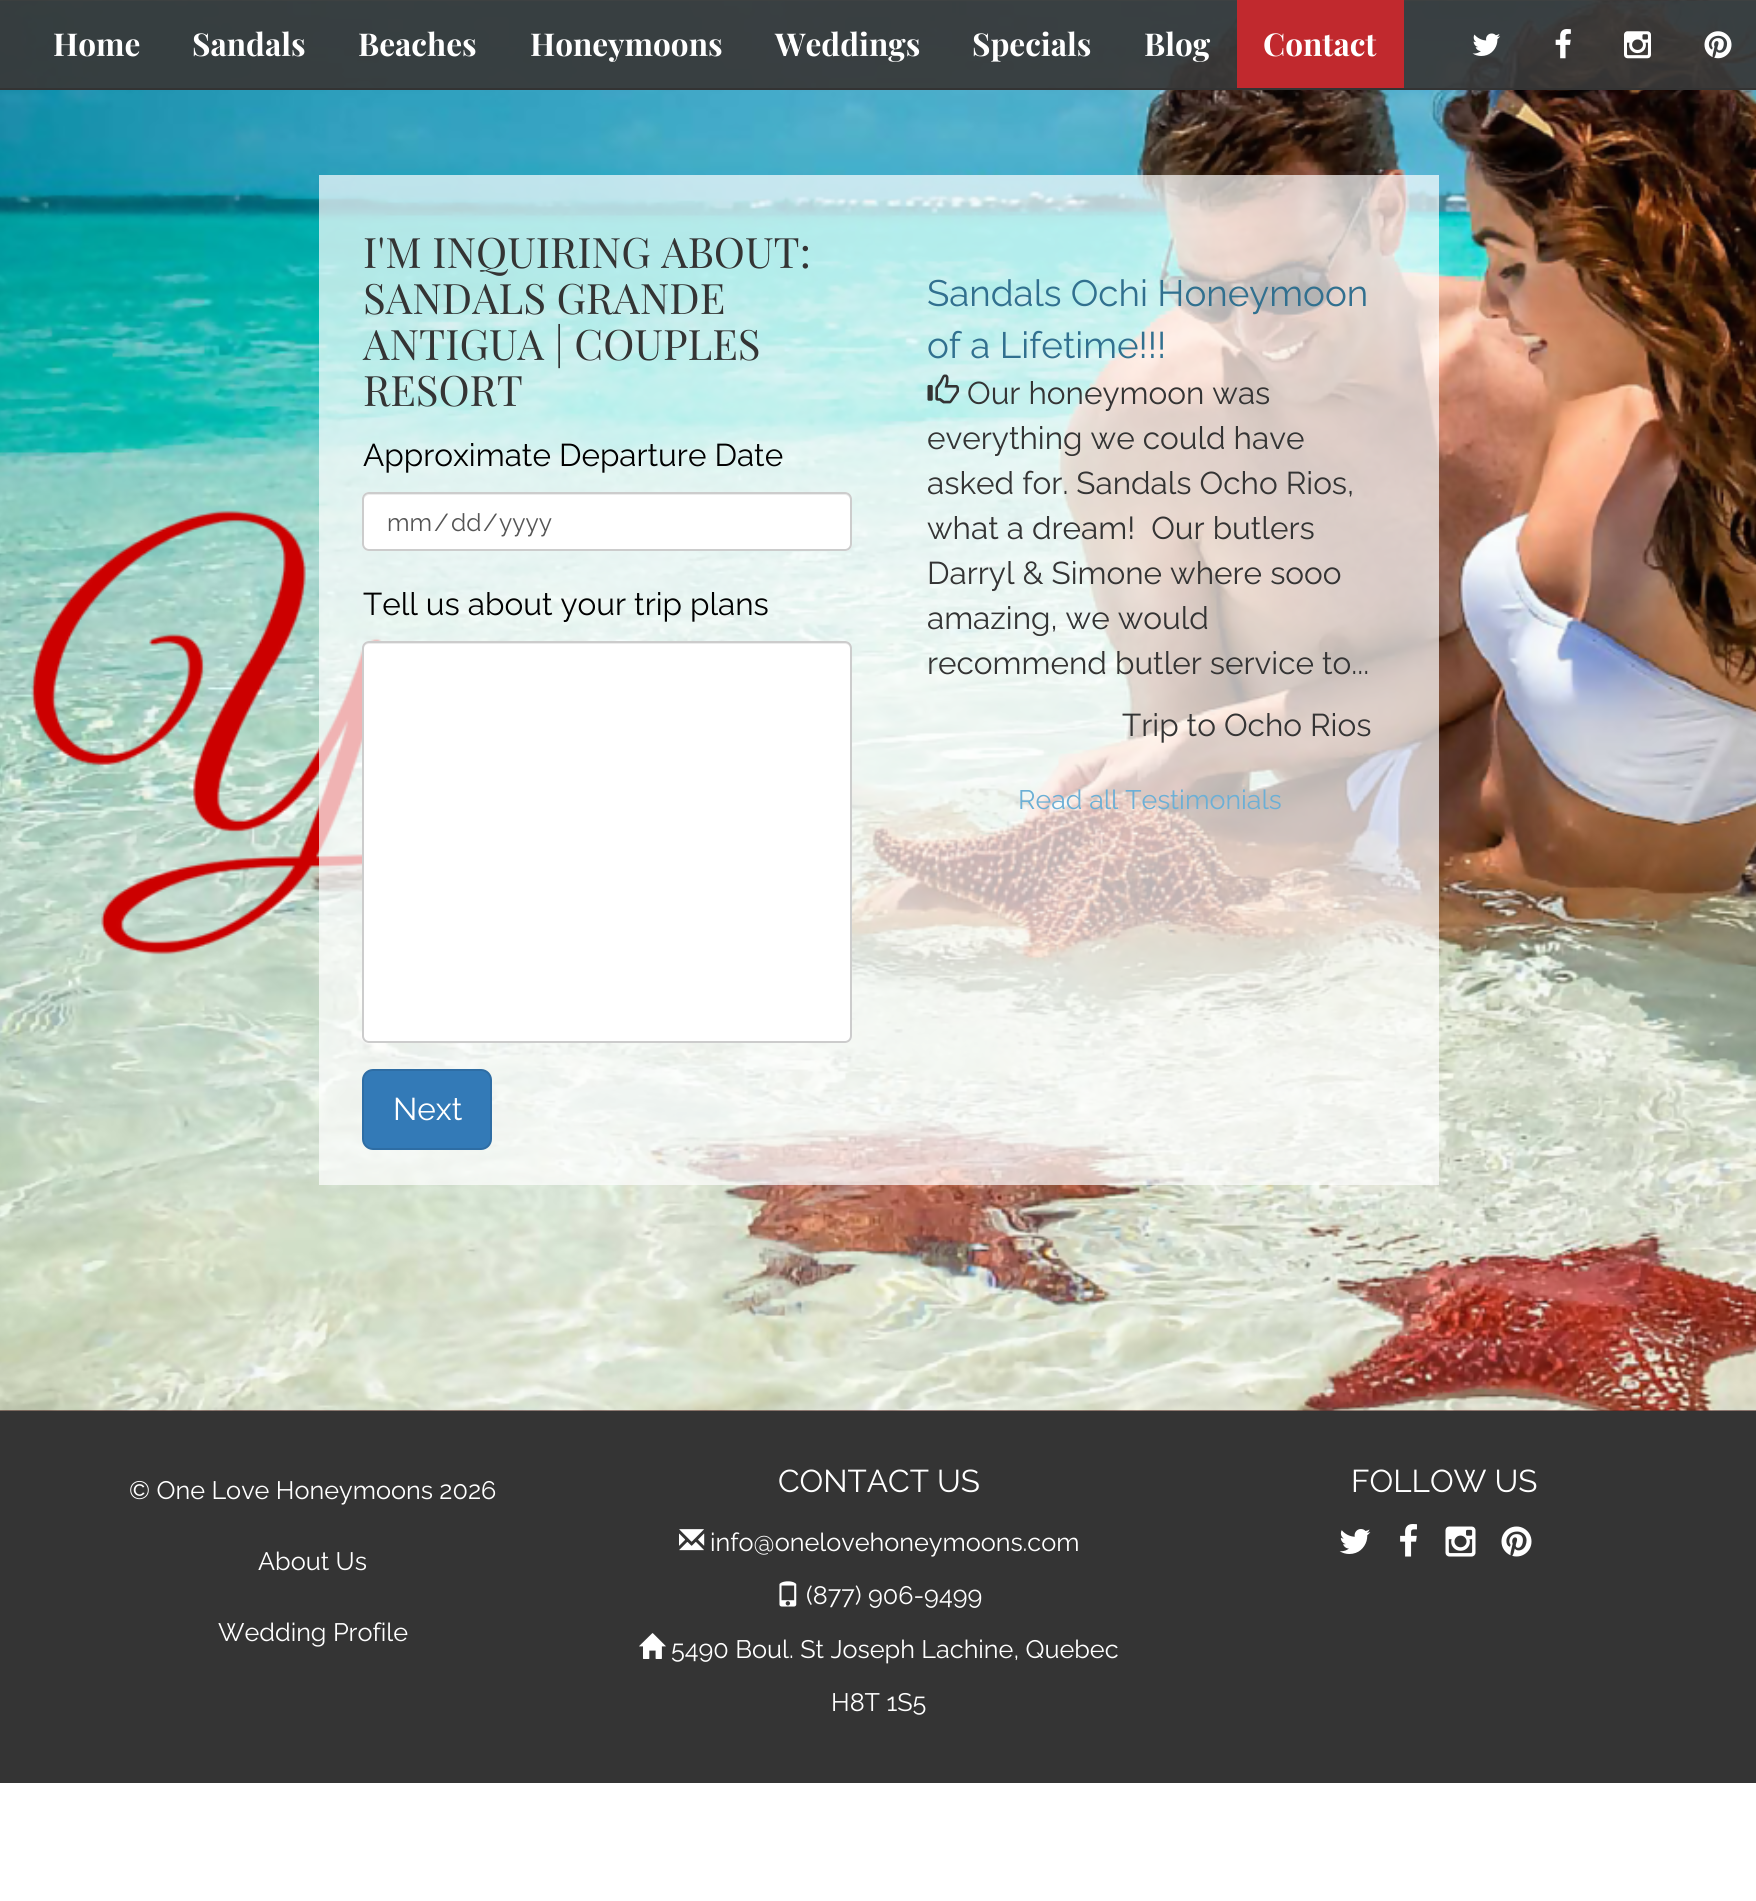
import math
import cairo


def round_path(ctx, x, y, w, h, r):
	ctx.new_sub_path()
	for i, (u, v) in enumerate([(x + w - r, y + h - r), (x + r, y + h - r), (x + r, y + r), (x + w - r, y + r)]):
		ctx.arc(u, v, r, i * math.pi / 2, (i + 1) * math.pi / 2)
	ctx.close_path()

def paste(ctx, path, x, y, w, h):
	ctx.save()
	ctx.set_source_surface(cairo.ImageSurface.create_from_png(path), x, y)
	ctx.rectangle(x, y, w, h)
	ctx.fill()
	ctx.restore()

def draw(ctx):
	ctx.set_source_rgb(1, 1, 1)
	ctx.paint()
	ctx.set_source_rgb(0.357, 0.102, 0.075)
	ctx.rectangle(0, 1410, 1756, 1)
	ctx.fill()
	paste(ctx, 'media/5.png', 0, 0, 1756, 1411)
	ctx.set_source_rgba(0.22, 0.22, 0.22, 0.93)
	ctx.rectangle(0, 0, 1756, 88)
	ctx.fill()
	ctx.set_source_rgb(0.2, 0.2, 0.2)
	ctx.rectangle(0, 88, 1756, 2)
	ctx.fill()
	ctx.select_font_face('Playfair Display', cairo.FONT_SLANT_NORMAL, cairo.FONT_WEIGHT_BOLD)
	ctx.set_font_size(31.5)
	ctx.set_source_rgb(1, 1, 1)
	for x, y, s in [
		(53, 56, 'Home'),
		(192, 56, 'Sandals'),
		(358, 56, 'Beaches'),
		(530, 56, 'Honeymoons'),
		(775, 56, 'Weddings'),
		(972, 56, 'Specials'),
		(1144, 56, 'Blog'),
	]:
		ctx.move_to(x, y)
		ctx.show_text(s)
	ctx.set_source_rgb(0.757, 0.161, 0.18)
	ctx.rectangle(1237, 0, 167, 88)
	ctx.fill()
	ctx.set_source_rgb(1, 1, 1)
	ctx.move_to(1263, 56)
	ctx.show_text('Contact')
	paste(ctx, 'media/1.png', 1472, 33, 29, 23)
	paste(ctx, 'media/2.png', 1555, 29, 16, 30)
	paste(ctx, 'media/3.png', 1624, 31, 27, 28)
	paste(ctx, 'media/4.png', 1704, 31, 28, 28)
	ctx.set_source_rgba(1, 1, 1, 0.7)
	ctx.rectangle(319, 175, 1120, 1010)
	ctx.fill()
	ctx.select_font_face('Playfair Display')
	ctx.set_font_size(42)
	ctx.set_source_rgb(0.204, 0.204, 0.204)
	for x, y, s in [
		(363, 268, 'I\'M INQUIRING ABOUT:'),
		(363, 314, 'SANDALS GRANDE'),
		(363, 360, 'ANTIGUA | COUPLES'),
		(363, 406, 'RESORT'),
	]:
		ctx.move_to(x, y)
		ctx.show_text(s)
	ctx.select_font_face('Raleway')
	ctx.set_font_size(31.5)
	ctx.set_source_rgb(0, 0, 0)
	ctx.move_to(363, 466)
	ctx.show_text('Approximate Departure Date')
	ctx.set_source_rgb(1, 1, 1)
	round_path(ctx, 362, 492, 490, 59, 7)
	ctx.fill()
	ctx.set_source_rgb(0.925, 0.925, 0.925)
	ctx.new_path()
	ctx.move_to(369, 495)
	ctx.line_to(845, 495)
	ctx.curve_to(848, 495, 850, 498, 850, 500)
	ctx.line_to(850, 546)
	ctx.line_to(849, 549)
	ctx.curve_to(850, 548, 851, 546, 851, 545)
	ctx.line_to(851, 499)
	ctx.curve_to(851, 496, 849, 494, 846, 494)
	ctx.line_to(369, 494)
	ctx.curve_to(366, 494, 364, 496, 364, 499)
	ctx.line_to(364, 500)
	ctx.curve_to(364, 498, 366, 495, 369, 495)
	ctx.close_path()
	ctx.fill()
	round_path(ctx, 363, 493, 488, 57, 6)
	ctx.set_source_rgb(0.8, 0.8, 0.8)
	ctx.stroke()
	ctx.set_font_size(24.5)
	ctx.set_source_rgb(0.333, 0.333, 0.333)
	for x, y, s in [
		(387, 531, 'mm'),
		(434, 531, '/'),
		(451, 531, 'dd'),
		(483, 531, '/'),
		(499, 531, 'yyyy'),
	]:
		ctx.move_to(x, y)
		ctx.show_text(s)
	ctx.set_font_size(31.5)
	ctx.set_source_rgb(0, 0, 0)
	ctx.move_to(363, 615)
	ctx.show_text('Tell us about your trip plans')
	ctx.set_source_rgb(1, 1, 1)
	round_path(ctx, 362, 641, 490, 402, 7)
	ctx.fill()
	ctx.set_source_rgb(0.925, 0.925, 0.925)
	ctx.new_path()
	ctx.move_to(369, 644)
	ctx.line_to(845, 644)
	ctx.curve_to(848, 644, 850, 646, 850, 649)
	ctx.line_to(850, 1039)
	ctx.curve_to(851, 1038, 851, 1037, 851, 1036)
	ctx.line_to(851, 647)
	ctx.curve_to(851, 644, 849, 642, 846, 642)
	ctx.line_to(369, 642)
	ctx.curve_to(366, 642, 364, 644, 364, 647)
	ctx.line_to(364, 649)
	ctx.curve_to(364, 646, 366, 644, 369, 644)
	ctx.close_path()
	ctx.fill()
	round_path(ctx, 363, 642, 488, 400, 6)
	ctx.set_source_rgb(0.8, 0.8, 0.8)
	ctx.stroke()
	ctx.set_source_rgb(0.2, 0.478, 0.718)
	round_path(ctx, 363, 1070, 128, 79, 10)
	ctx.fill_preserve()
	ctx.set_source_rgb(0.18, 0.427, 0.643)
	ctx.stroke()
	ctx.set_source_rgb(1, 1, 1)
	ctx.move_to(393, 1120)
	ctx.show_text('Next')
	ctx.set_font_size(36.75)
	ctx.set_source_rgb(0.192, 0.439, 0.561)
	ctx.move_to(927, 306)
	ctx.show_text('Sandals Ochi Honeymoon')
	ctx.move_to(927, 358)
	ctx.show_text('of a Lifetime!!!')
	paste(ctx, 'media/6.png', 927, 374, 32, 30)
	ctx.set_font_size(31.5)
	ctx.set_source_rgb(0.204, 0.204, 0.204)
	for x, y, s in [
		(967, 404, 'Our honeymoon was'),
		(927, 449, 'everything we could have'),
		(927, 494, 'asked for. Sandals Ocho Rios,'),
		(927, 539, 'what a dream!  Our butlers'),
		(927, 584, 'Darryl & Simone where sooo'),
		(927, 629, 'amazing, we would'),
		(927, 674, 'recommend butler service to...'),
		(1122, 736, 'Trip to Ocho Rios'),
	]:
		ctx.move_to(x, y)
		ctx.show_text(s)
	ctx.set_font_size(26.75)
	ctx.set_source_rgb(0.424, 0.686, 0.835)
	ctx.move_to(1018, 809)
	ctx.show_text('Read all Testimonials')
	ctx.set_source_rgb(0.204, 0.204, 0.204)
	ctx.rectangle(0, 1411, 1756, 372)
	ctx.fill()
	ctx.set_font_size(25.25)
	ctx.set_source_rgb(1, 1, 1)
	for x, y, s in [
		(129, 1499, '© One Love Honeymoons 2026'),
		(258, 1570, 'About Us'),
		(218, 1641, 'Wedding Profile'),
	]:
		ctx.move_to(x, y)
		ctx.show_text(s)
	ctx.set_font_size(31.5)
	ctx.move_to(778, 1492)
	ctx.show_text('CONTACT US')
	paste(ctx, 'media/7.png', 679, 1529, 26, 22)
	ctx.set_font_size(25.25)
	ctx.move_to(710, 1551)
	ctx.show_text('info@onelovehoneymoons.com')
	paste(ctx, 'media/8.png', 779, 1581, 18, 26)
	ctx.move_to(806, 1604)
	ctx.show_text('(877) 906-9499')
	paste(ctx, 'media/9.png', 639, 1633, 27, 26)
	ctx.move_to(671, 1658)
	ctx.show_text('5490 Boul. St Joseph Lachine, Quebec')
	ctx.move_to(831, 1711)
	ctx.show_text('H8T 1S5')
	ctx.set_font_size(31.5)
	ctx.move_to(1351, 1492)
	ctx.show_text('FOLLOW US')
	paste(ctx, 'media/10.png', 1339, 1529, 32, 25)
	paste(ctx, 'media/11.png', 1400, 1524, 17, 33)
	paste(ctx, 'media/12.png', 1445, 1526, 31, 31)
	paste(ctx, 'media/13.png', 1501, 1526, 31, 31)


surface = cairo.ImageSurface(cairo.FORMAT_RGB24, 1756, 1901)
ctx = cairo.Context(surface)
options = cairo.FontOptions()
options.set_hint_metrics(cairo.HINT_METRICS_OFF)
options.set_hint_style(cairo.HINT_STYLE_NONE)
ctx.set_font_options(options)
ctx.set_miter_limit(4)
draw(ctx)
surface.write_to_png('image.png')
